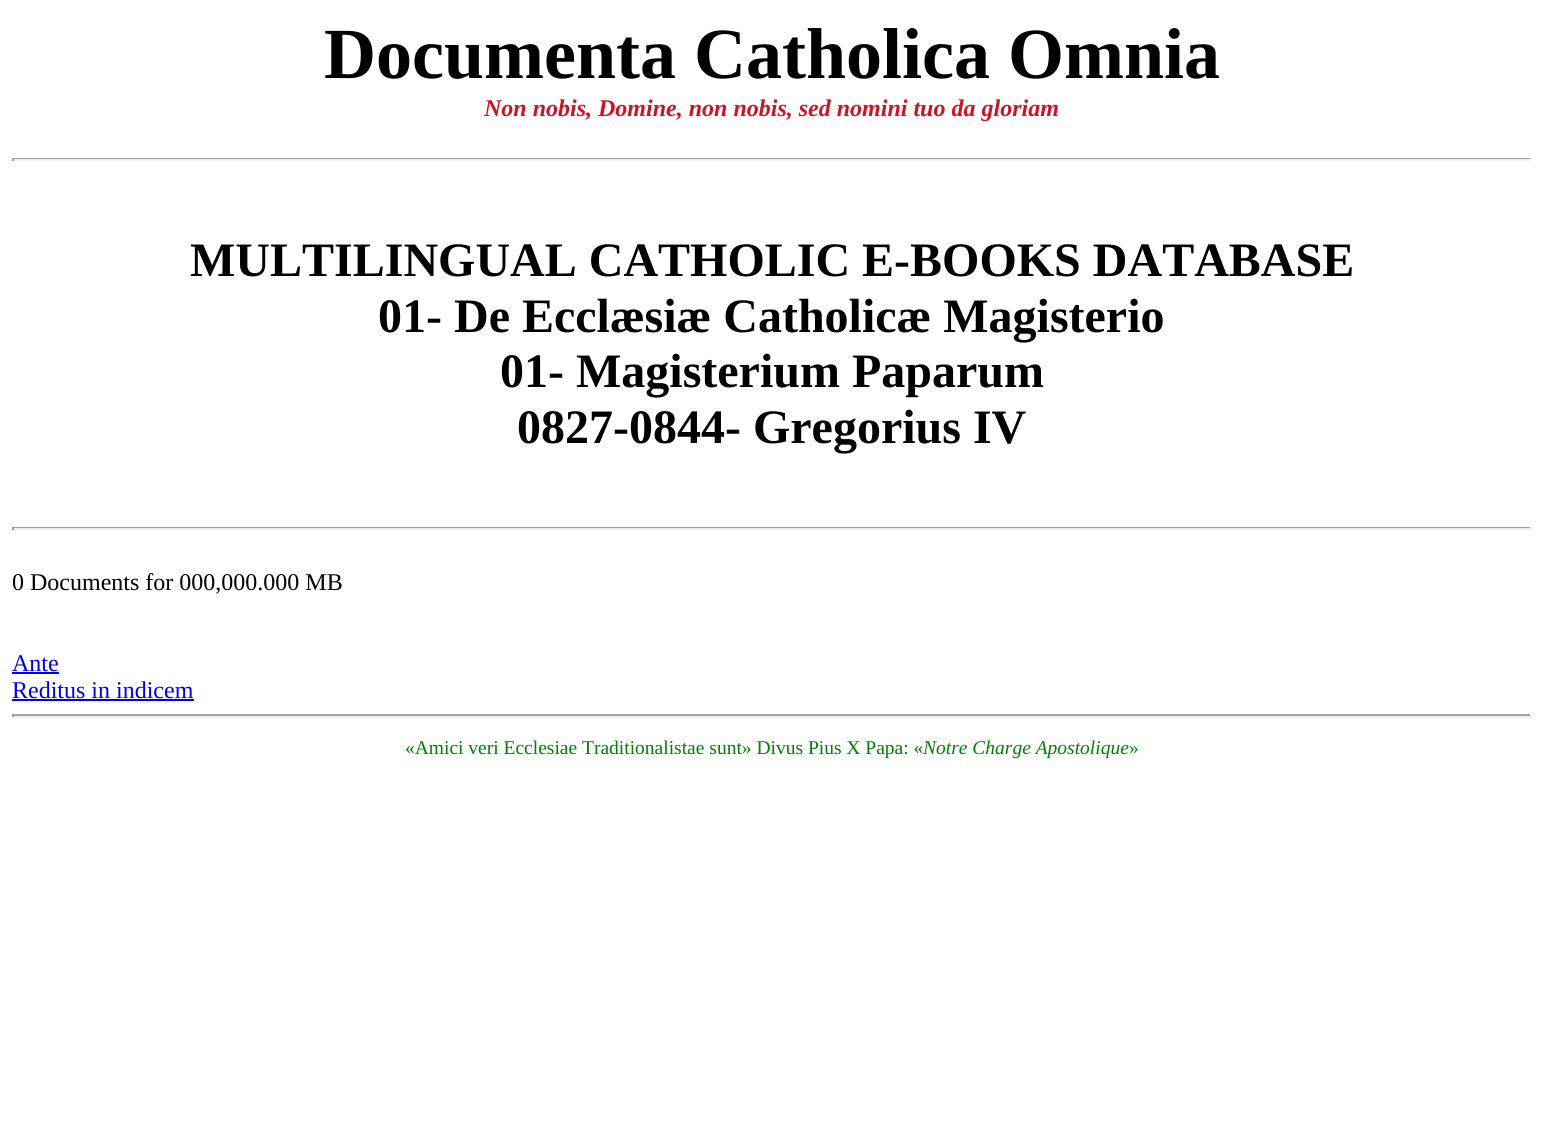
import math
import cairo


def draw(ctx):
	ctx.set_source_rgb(1, 1, 1)
	ctx.paint()
	ctx.select_font_face('Liberation Serif', cairo.FONT_SLANT_NORMAL, cairo.FONT_WEIGHT_BOLD)
	ctx.set_font_size(72)
	ctx.set_source_rgb(0, 0, 0)
	ctx.move_to(324, 78)
	ctx.show_text('Documenta Catholica Omnia')
	ctx.select_font_face('Liberation Serif', cairo.FONT_SLANT_ITALIC, cairo.FONT_WEIGHT_BOLD)
	ctx.set_font_size(24)
	ctx.set_source_rgb(0.812, 0.075, 0.149)
	ctx.move_to(484, 116)
	ctx.show_text('Non nobis, Domine, non nobis, sed nomini tuo da gloriam')
	ctx.set_source_rgb(0.624, 0.624, 0.624)
	ctx.rectangle(12, 158, 1520, 1)
	ctx.fill()
	ctx.set_source_rgb(0.933, 0.933, 0.933)
	ctx.rectangle(1530, 158, 2, 3)
	ctx.rectangle(12, 159, 1520, 2)
	ctx.fill()
	ctx.set_source_rgb(0.624, 0.624, 0.624)
	ctx.rectangle(12, 158, 2, 3)
	ctx.fill()
	ctx.select_font_face('Liberation Serif', cairo.FONT_SLANT_NORMAL, cairo.FONT_WEIGHT_BOLD)
	ctx.set_font_size(48)
	ctx.set_source_rgb(0, 0, 0)
	for x, y, s in [
		(190, 276, 'MULTILINGUAL CATHOLIC E-BOOKS DATABASE'),
		(378, 332, '01- De Ecclæsiæ Catholicæ Magisterio'),
		(500, 387, '01- Magisterium Paparum'),
		(517, 443, '0827-0844- Gregorius IV'),
	]:
		ctx.move_to(x, y)
		ctx.show_text(s)
	ctx.set_source_rgb(0.624, 0.624, 0.624)
	ctx.rectangle(12, 527, 1520, 1)
	ctx.fill()
	ctx.set_source_rgb(0.933, 0.933, 0.933)
	ctx.rectangle(1530, 527, 2, 3)
	ctx.rectangle(12, 528, 1520, 2)
	ctx.fill()
	ctx.set_source_rgb(0.624, 0.624, 0.624)
	ctx.rectangle(12, 527, 2, 3)
	ctx.fill()
	ctx.select_font_face('Liberation Serif')
	ctx.set_font_size(24)
	ctx.set_source_rgb(0, 0, 0)
	ctx.move_to(12, 590)
	ctx.show_text('0 Documents for 000,000.000 MB')
	ctx.set_source_rgb(0, 0, 0.933)
	ctx.move_to(12, 671)
	ctx.show_text('Ante')
	ctx.rectangle(12, 672, 47, 2)
	ctx.fill()
	ctx.move_to(12, 698)
	ctx.show_text('Reditus in indicem')
	ctx.rectangle(12, 699, 182, 2)
	ctx.fill()
	ctx.set_source_rgb(0.624, 0.624, 0.624)
	ctx.rectangle(12, 714, 1520, 2)
	ctx.fill()
	ctx.set_source_rgb(0.933, 0.933, 0.933)
	ctx.rectangle(1530, 714, 2, 3)
	ctx.rectangle(12, 716, 1520, 2)
	ctx.fill()
	ctx.set_source_rgb(0.624, 0.624, 0.624)
	ctx.rectangle(12, 714, 2, 3)
	ctx.fill()
	ctx.set_font_size(19.5)
	ctx.set_source_rgb(0, 0.502, 0)
	ctx.move_to(405, 754)
	ctx.show_text('«Amici veri Ecclesiae Traditionalistae sunt» Divus Pius X Papa: «')
	ctx.select_font_face('Liberation Serif', cairo.FONT_SLANT_ITALIC)
	ctx.move_to(923, 754)
	ctx.show_text('Notre Charge Apostolique')
	ctx.select_font_face('Liberation Serif')
	ctx.move_to(1129, 754)
	ctx.show_text('»')


surface = cairo.ImageSurface(cairo.FORMAT_RGB24, 1543, 1123)
ctx = cairo.Context(surface)
options = cairo.FontOptions()
options.set_hint_metrics(cairo.HINT_METRICS_OFF)
options.set_hint_style(cairo.HINT_STYLE_NONE)
ctx.set_font_options(options)
ctx.set_miter_limit(4)
draw(ctx)
surface.write_to_png('image.png')
